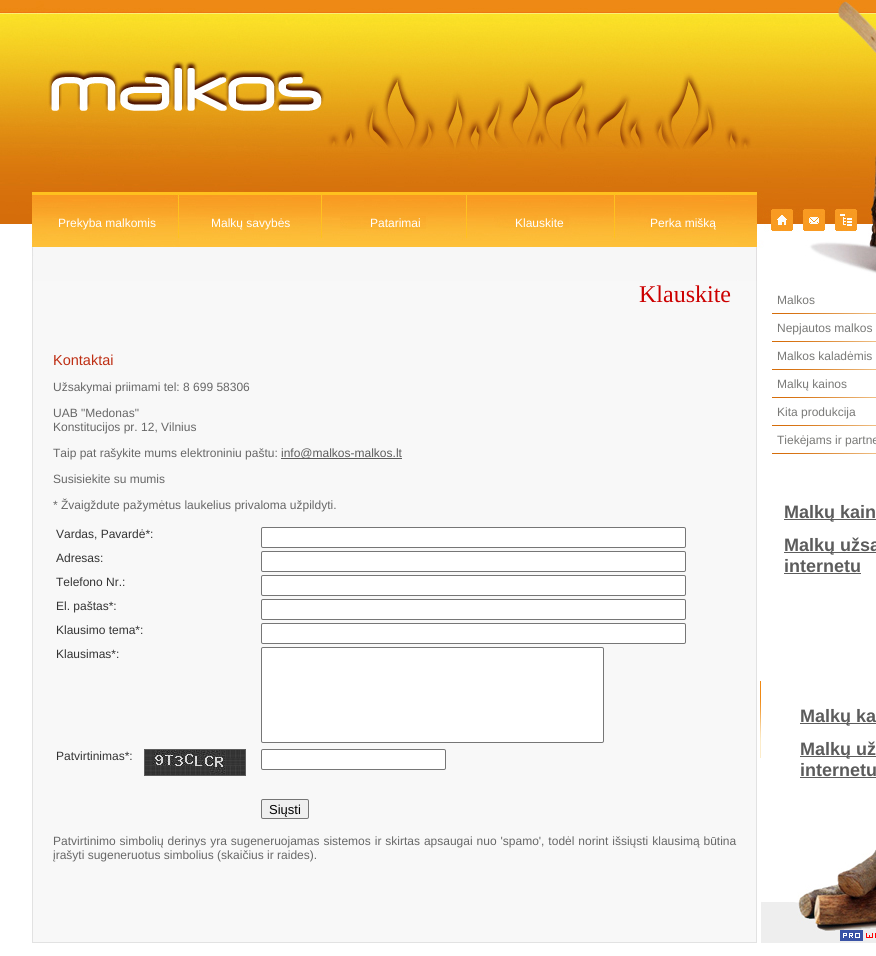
import math
import cairo


def write_spaced(ctx, x, y, s, letter, word):
	ctx.move_to(x, y)
	for ch in s:
		ctx.show_text(ch)
		ctx.rel_move_to(letter + word * (ch == ' '), 0)

def round_path(ctx, x, y, w, h, r):
	ctx.new_sub_path()
	for i, (u, v) in enumerate([(x + w - r, y + h - r), (x + r, y + h - r), (x + r, y + r), (x + w - r, y + r)]):
		ctx.arc(u, v, r, i * math.pi / 2, (i + 1) * math.pi / 2)
	ctx.close_path()

def paste(ctx, path, x, y, w, h):
	ctx.save()
	ctx.set_source_surface(cairo.ImageSurface.create_from_png(path), x, y)
	ctx.rectangle(x, y, w, h)
	ctx.fill()
	ctx.restore()

def draw(ctx):
	ctx.set_source_rgb(1, 1, 1)
	ctx.paint()
	paste(ctx, 'media/1.png', 0, 0, 876, 224)
	paste(ctx, 'media/2.png', 30, 1, 846, 280)
	ctx.select_font_face('Liberation Sans')
	ctx.set_font_size(12)
	ctx.set_source_rgb(1, 1, 1)
	for x, y, s in [
		(58, 227, 'Prekyba malkomis'),
		(211, 227, 'Malkų savybės'),
		(370, 227, 'Patarimai'),
		(515, 227, 'Klauskite'),
		(650, 227, 'Perka mišką'),
	]:
		ctx.move_to(x, y)
		ctx.show_text(s)
	ctx.set_source_rgb(0.969, 0.969, 0.969)
	ctx.rectangle(33, 281, 723, 661)
	ctx.fill()
	ctx.set_source_rgb(0.886, 0.886, 0.886)
	ctx.rectangle(756, 281, 1, 662)
	ctx.rectangle(32, 942, 725, 1)
	ctx.rectangle(32, 281, 1, 662)
	ctx.fill()
	ctx.select_font_face('Liberation Serif')
	ctx.set_font_size(24)
	ctx.set_source_rgb(0.8, 0, 0)
	ctx.move_to(639, 302)
	ctx.show_text('Klauskite')
	ctx.select_font_face('Liberation Sans')
	ctx.set_font_size(14.5)
	ctx.set_source_rgb(0.745, 0.18, 0.078)
	ctx.move_to(53, 365)
	ctx.show_text('Kontaktai')
	ctx.set_font_size(12)
	ctx.set_source_rgb(0.404, 0.404, 0.404)
	for x, y, s in [
		(53, 391, 'Užsakymai priimami tel: 8 699 58306'),
		(53, 417, 'UAB "Medonas"'),
		(53, 431, 'Konstitucijos pr. 12, Vilnius'),
		(53, 457, 'Taip pat rašykite mums elektroniniu paštu:'),
	]:
		ctx.move_to(x, y)
		ctx.show_text(s)
	ctx.set_source_rgb(0.361, 0.361, 0.361)
	ctx.rectangle(281, 458, 121, 1)
	ctx.fill()
	ctx.move_to(281, 457)
	ctx.show_text('info@malkos-malkos.lt')
	ctx.set_source_rgb(0.404, 0.404, 0.404)
	ctx.move_to(53, 483)
	ctx.show_text('Susisiekite su mumis')
	ctx.move_to(53, 509)
	ctx.show_text('* Žvaigždute pažymėtus laukelius privaloma užpildyti.')
	ctx.set_source_rgb(0.2, 0.2, 0.2)
	ctx.move_to(56, 538)
	ctx.show_text('Vardas, Pavardė*:')
	ctx.set_source_rgb(1, 1, 1)
	round_path(ctx, 261.5, 527.5, 424, 20, 1.5)
	ctx.fill_preserve()
	ctx.set_source_rgb(0.463, 0.463, 0.463)
	ctx.set_line_width(1)
	ctx.stroke()
	ctx.set_source_rgb(0.2, 0.2, 0.2)
	ctx.move_to(56, 562)
	ctx.show_text('Adresas:')
	ctx.set_source_rgb(1, 1, 1)
	round_path(ctx, 261.5, 551.5, 424, 20, 1.5)
	ctx.fill_preserve()
	ctx.set_source_rgb(0.463, 0.463, 0.463)
	ctx.stroke()
	ctx.set_source_rgb(0.2, 0.2, 0.2)
	ctx.move_to(56, 586)
	ctx.show_text('Telefono Nr.:')
	ctx.set_source_rgb(1, 1, 1)
	round_path(ctx, 261.5, 575.5, 424, 20, 1.5)
	ctx.fill_preserve()
	ctx.set_source_rgb(0.463, 0.463, 0.463)
	ctx.stroke()
	ctx.set_source_rgb(0.2, 0.2, 0.2)
	ctx.move_to(56, 610)
	ctx.show_text('El. paštas*:')
	ctx.set_source_rgb(1, 1, 1)
	round_path(ctx, 261.5, 599.5, 424, 20, 1.5)
	ctx.fill_preserve()
	ctx.set_source_rgb(0.463, 0.463, 0.463)
	ctx.stroke()
	ctx.set_source_rgb(0.2, 0.2, 0.2)
	ctx.move_to(56, 634)
	ctx.show_text('Klausimo tema*:')
	ctx.set_source_rgb(1, 1, 1)
	round_path(ctx, 261.5, 623.5, 424, 20, 1.5)
	ctx.fill_preserve()
	ctx.set_source_rgb(0.463, 0.463, 0.463)
	ctx.stroke()
	ctx.set_source_rgb(0.2, 0.2, 0.2)
	ctx.move_to(56, 658)
	ctx.show_text('Klausimas*:')
	ctx.set_source_rgb(1, 1, 1)
	round_path(ctx, 261.5, 647.5, 342, 95, 1.5)
	ctx.fill_preserve()
	ctx.set_source_rgb(0.463, 0.463, 0.463)
	ctx.stroke()
	ctx.set_source_rgb(0.2, 0.2, 0.2)
	ctx.move_to(56, 760)
	ctx.show_text('Patvirtinimas*:')
	ctx.rectangle(144.5, 749.5, 101, 26)
	ctx.set_source_rgb(0.361, 0.361, 0.361)
	ctx.stroke()
	paste(ctx, 'media/3.png', 145, 750, 100, 25)
	ctx.set_source_rgb(1, 1, 1)
	round_path(ctx, 261.5, 749.5, 184, 20, 1.5)
	ctx.fill_preserve()
	ctx.set_source_rgb(0.463, 0.463, 0.463)
	ctx.stroke()
	ctx.set_source_rgb(0.937, 0.937, 0.937)
	round_path(ctx, 261.5, 799.5, 47, 19, 1.5)
	ctx.fill_preserve()
	ctx.set_source_rgb(0.463, 0.463, 0.463)
	ctx.stroke()
	ctx.set_font_size(13)
	ctx.set_source_rgb(0, 0, 0)
	ctx.move_to(269, 814)
	ctx.show_text('Siųsti')
	ctx.set_font_size(12)
	ctx.set_source_rgb(0.404, 0.404, 0.404)
	write_spaced(ctx, 53, 845, 'Patvirtinimo simbolių derinys yra sugeneruojamas sistemos ir skirtas apsaugai nuo \'spamo\', todėl norint išsiųsti klausimą būtina', 0, 0.6)
	ctx.move_to(53, 859)
	ctx.show_text('įrašyti sugeneruotus simbolius (skaičius ir raides).')
	paste(ctx, 'media/4.png', 772, 313, 104, 1)
	ctx.set_source_rgb(0.475, 0.475, 0.467)
	ctx.move_to(777, 304)
	ctx.show_text('Malkos')
	paste(ctx, 'media/4.png', 772, 341, 104, 1)
	ctx.move_to(777, 332)
	ctx.show_text('Nepjautos malkos')
	paste(ctx, 'media/4.png', 772, 369, 104, 1)
	ctx.move_to(777, 360)
	ctx.show_text('Malkos kaladėmis')
	paste(ctx, 'media/4.png', 772, 397, 104, 1)
	ctx.move_to(777, 388)
	ctx.show_text('Malkų kainos')
	paste(ctx, 'media/4.png', 772, 425, 104, 1)
	ctx.move_to(777, 416)
	ctx.show_text('Kita produkcija')
	paste(ctx, 'media/4.png', 772, 453, 104, 1)
	ctx.move_to(777, 444)
	ctx.show_text('Tiekėjams ir partne')
	ctx.set_source_rgb(0.361, 0.361, 0.361)
	ctx.rectangle(784, 519, 92, 1)
	ctx.fill()
	ctx.select_font_face('Liberation Sans', cairo.FONT_SLANT_NORMAL, cairo.FONT_WEIGHT_BOLD)
	ctx.set_font_size(18)
	ctx.move_to(784, 518)
	ctx.show_text('Malkų kain')
	ctx.rectangle(784, 552, 92, 1)
	ctx.fill()
	ctx.move_to(784, 551)
	ctx.show_text('Malkų užsa')
	ctx.move_to(784, 572)
	ctx.show_text('internetu')
	ctx.rectangle(784, 573, 77, 1)
	ctx.fill()
	paste(ctx, 'media/5.png', 761, 849, 115, 94)
	paste(ctx, 'media/6.png', 760, 681, 1, 77)
	ctx.rectangle(800, 723, 76, 1)
	ctx.fill()
	ctx.move_to(800, 722)
	ctx.show_text('Malkų ka')
	ctx.rectangle(800, 756, 76, 1)
	ctx.fill()
	ctx.move_to(800, 755)
	ctx.show_text('Malkų už')
	ctx.move_to(800, 776)
	ctx.show_text('internetu')
	ctx.rectangle(800, 777, 76, 1)
	ctx.fill()
	paste(ctx, 'media/7.png', 840, 930, 36, 11)


surface = cairo.ImageSurface(cairo.FORMAT_RGB24, 876, 956)
ctx = cairo.Context(surface)
options = cairo.FontOptions()
options.set_hint_metrics(cairo.HINT_METRICS_OFF)
options.set_hint_style(cairo.HINT_STYLE_NONE)
ctx.set_font_options(options)
ctx.set_miter_limit(4)
draw(ctx)
surface.write_to_png('image.png')
